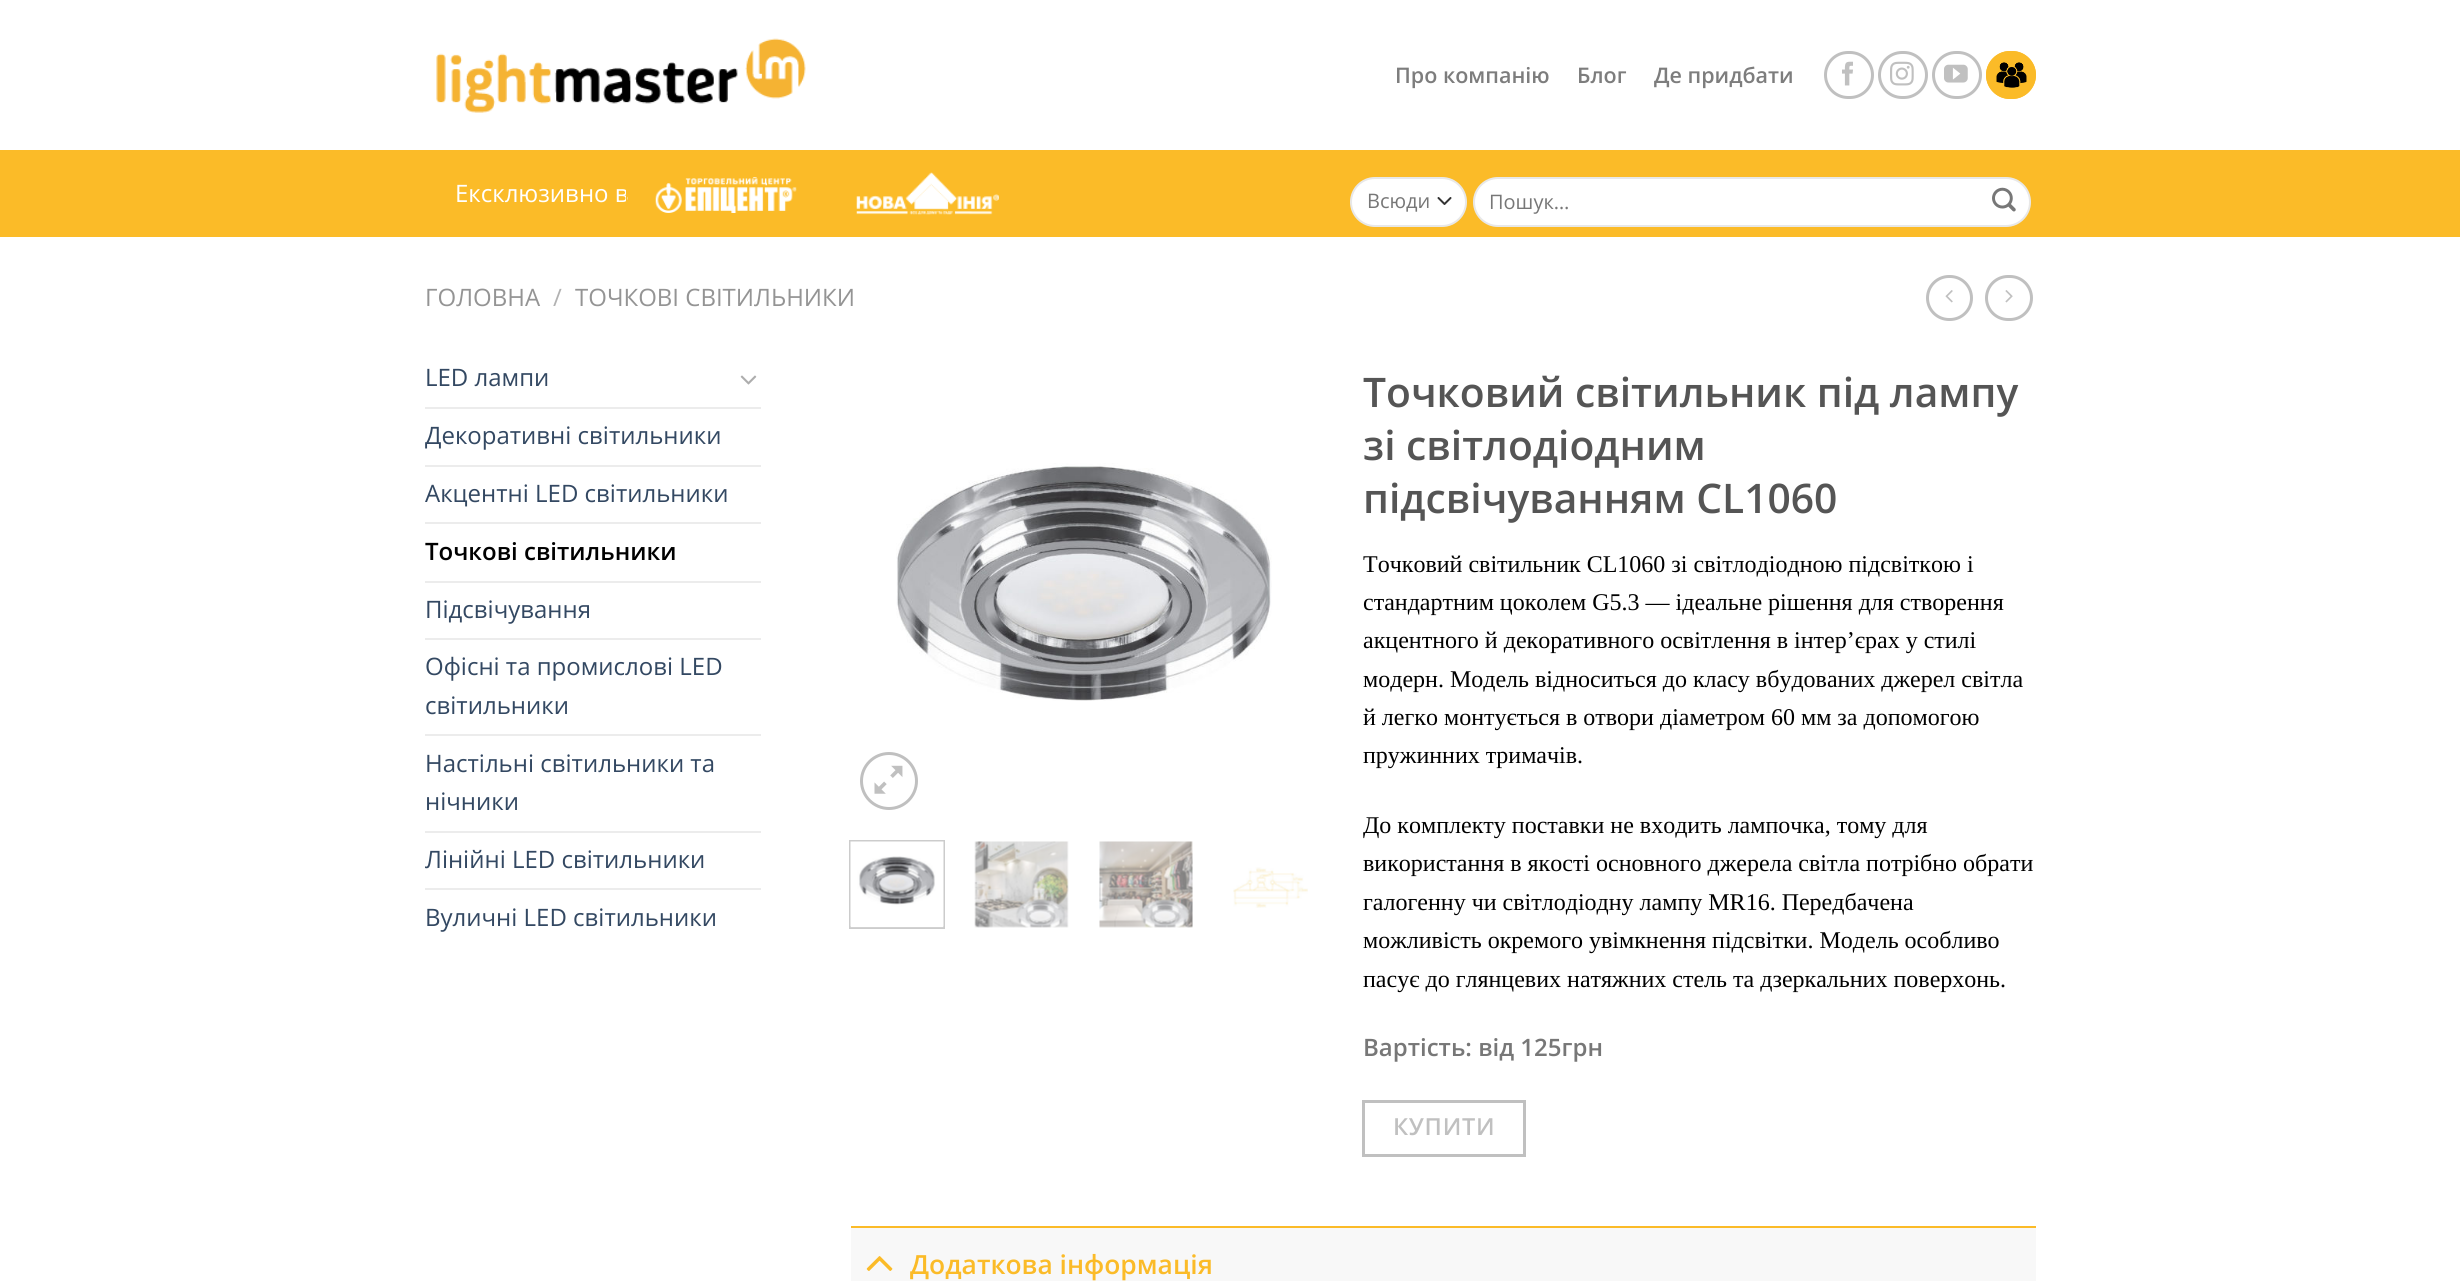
import math
import cairo


def write_spaced(ctx, x, y, s, letter, word):
	ctx.move_to(x, y)
	for ch in s:
		ctx.show_text(ch)
		ctx.rel_move_to(letter + word * (ch == ' '), 0)

def round_path(ctx, x, y, w, h, r):
	ctx.new_sub_path()
	for i, (u, v) in enumerate([(x + w - r, y + h - r), (x + r, y + h - r), (x + r, y + r), (x + w - r, y + r)]):
		ctx.arc(u, v, r, i * math.pi / 2, (i + 1) * math.pi / 2)
	ctx.close_path()

def paste(ctx, path, x, y, w, h):
	ctx.save()
	ctx.set_source_surface(cairo.ImageSurface.create_from_png(path), x, y)
	ctx.rectangle(x, y, w, h)
	ctx.fill()
	ctx.restore()

def draw(ctx):
	ctx.set_source_rgb(1, 1, 1)
	ctx.paint()
	paste(ctx, 'media/1.png', 436, 38, 370, 75)
	ctx.select_font_face('Open Sans SemiBold')
	ctx.set_font_size(21.5)
	ctx.set_source_rgb(0.49, 0.49, 0.49)
	for x, y, s in [
		(1395, 83, 'Про компанію'),
		(1577, 83, 'Блог'),
		(1654, 83, 'Де придбати'),
	]:
		ctx.move_to(x, y)
		ctx.show_text(s)
	round_path(ctx, 1825.5, 52.5, 47, 45, 22.5)
	ctx.set_source_rgb(0.753, 0.753, 0.753)
	ctx.set_line_width(3)
	ctx.stroke()
	paste(ctx, 'media/2.png', 1842, 61, 11, 25)
	round_path(ctx, 1879.5, 52.5, 47, 45, 22.5)
	ctx.stroke()
	paste(ctx, 'media/3.png', 1890, 61, 24, 25)
	round_path(ctx, 1933.5, 52.5, 47, 45, 22.5)
	ctx.stroke()
	paste(ctx, 'media/4.png', 1944, 64, 24, 19)
	ctx.set_source_rgb(0.984, 0.733, 0.157)
	round_path(ctx, 1986, 51, 50, 48, 24)
	ctx.fill()
	paste(ctx, 'media/5.png', 1996, 62, 31, 26)
	round_path(ctx, 1987.5, 52.5, 47, 45, 22.5)
	ctx.stroke()
	ctx.rectangle(0, 150, 2460, 87)
	ctx.fill()
	ctx.select_font_face('Open Sans')
	ctx.set_font_size(24)
	ctx.set_source_rgb(1, 1, 1)
	ctx.move_to(455, 202)
	ctx.show_text('Ексклюзивно в')
	ctx.set_source_rgb(0.984, 0.733, 0.157)
	ctx.rectangle(626, 190, 1, 11)
	ctx.fill()
	paste(ctx, 'media/6.png', 655, 177, 142, 36)
	paste(ctx, 'media/7.png', 856, 172, 143, 43)
	ctx.set_source_rgb(1, 1, 1)
	round_path(ctx, 1350, 177, 117, 50, 25)
	ctx.fill()
	ctx.new_path()
	ctx.move_to(1438.5, 198)
	ctx.line_to(1444.5, 204)
	ctx.line_to(1450.5, 198)
	ctx.set_source_rgb(0.2, 0.2, 0.2)
	ctx.set_line_width(2)
	ctx.set_line_cap(cairo.LINE_CAP_ROUND)
	ctx.set_line_join(cairo.LINE_JOIN_ROUND)
	ctx.stroke()
	round_path(ctx, 1351, 178, 115, 48, 24)
	ctx.set_source_rgba(0, 0, 0, 0.09)
	ctx.set_line_cap(cairo.LINE_CAP_BUTT)
	ctx.set_line_join(cairo.LINE_JOIN_MITER)
	ctx.stroke()
	ctx.set_font_size(20)
	ctx.set_source_rgb(0.467, 0.467, 0.467)
	ctx.move_to(1367, 208)
	ctx.show_text('Всюди')
	ctx.set_source_rgb(1, 1, 1)
	round_path(ctx, 1473, 177, 558, 50, 25)
	ctx.fill()
	round_path(ctx, 1474, 178, 556, 48, 24)
	ctx.set_source_rgba(0, 0, 0, 0.09)
	ctx.stroke()
	ctx.set_source_rgb(0.467, 0.467, 0.467)
	ctx.move_to(1489, 209)
	ctx.show_text('Пошук…')
	paste(ctx, 'media/8.png', 1992, 187, 24, 25)
	ctx.set_font_size(24)
	ctx.set_source_rgb(0.58, 0.58, 0.58)
	ctx.move_to(425, 306)
	ctx.show_text('ГОЛОВНА')
	ctx.set_source_rgb(0.698, 0.698, 0.698)
	ctx.move_to(553, 306)
	ctx.show_text('/')
	ctx.set_source_rgb(0.58, 0.58, 0.58)
	ctx.move_to(575, 306)
	ctx.show_text('ТОЧКОВІ СВІТИЛЬНИКИ')
	round_path(ctx, 1927.5, 276.5, 44, 43, 21.5)
	ctx.set_source_rgb(0.753, 0.753, 0.753)
	ctx.set_line_width(3)
	ctx.stroke()
	paste(ctx, 'media/9.png', 1945, 290, 8, 13)
	round_path(ctx, 1986.5, 276.5, 45, 43, 21.5)
	ctx.stroke()
	paste(ctx, 'media/10.png', 2005, 290, 8, 13)
	ctx.set_source_rgb(0.2, 0.282, 0.384)
	ctx.move_to(425, 386)
	ctx.show_text('LED лампи')
	paste(ctx, 'media/11.png', 740, 375, 17, 10)
	ctx.set_source_rgb(0.925, 0.925, 0.925)
	ctx.rectangle(425, 407, 336, 2)
	ctx.fill()
	ctx.set_source_rgb(0.2, 0.282, 0.384)
	ctx.move_to(425, 444)
	ctx.show_text('Декоративні світильники')
	ctx.set_source_rgb(0.925, 0.925, 0.925)
	ctx.rectangle(425, 465, 336, 2)
	ctx.fill()
	ctx.set_source_rgb(0.2, 0.282, 0.384)
	ctx.move_to(425, 502)
	ctx.show_text('Акцентні LED світильники')
	ctx.set_source_rgb(0.925, 0.925, 0.925)
	ctx.rectangle(425, 522, 336, 2)
	ctx.fill()
	ctx.select_font_face('Open Sans SemiBold')
	ctx.set_source_rgb(0, 0, 0)
	ctx.move_to(425, 560)
	ctx.show_text('Точкові світильники')
	ctx.set_source_rgb(0.925, 0.925, 0.925)
	ctx.rectangle(425, 581, 336, 2)
	ctx.fill()
	ctx.select_font_face('Open Sans')
	ctx.set_source_rgb(0.2, 0.282, 0.384)
	ctx.move_to(425, 618)
	ctx.show_text('Підсвічування')
	ctx.set_source_rgb(0.925, 0.925, 0.925)
	ctx.rectangle(425, 638, 336, 2)
	ctx.fill()
	ctx.set_source_rgb(0.2, 0.282, 0.384)
	ctx.move_to(425, 675)
	ctx.show_text('Офісні та промислові LED')
	ctx.move_to(425, 714)
	ctx.show_text('світильники')
	ctx.set_source_rgb(0.925, 0.925, 0.925)
	ctx.rectangle(425, 734, 336, 2)
	ctx.fill()
	ctx.set_source_rgb(0.2, 0.282, 0.384)
	ctx.move_to(425, 772)
	ctx.show_text('Настільні світильники та')
	ctx.move_to(425, 810)
	ctx.show_text('нічники')
	ctx.set_source_rgb(0.925, 0.925, 0.925)
	ctx.rectangle(425, 831, 336, 2)
	ctx.fill()
	ctx.set_source_rgb(0.2, 0.282, 0.384)
	ctx.move_to(425, 868)
	ctx.show_text('Лінійні LED світильники')
	ctx.set_source_rgb(0.925, 0.925, 0.925)
	ctx.rectangle(425, 888, 336, 2)
	ctx.fill()
	ctx.set_source_rgb(0.2, 0.282, 0.384)
	ctx.move_to(425, 926)
	ctx.show_text('Вуличні LED світильники')
	paste(ctx, 'media/12.png', 896, 463, 376, 238)
	ctx.arc(889, 781, 27.5, 0, 2 * math.pi)
	ctx.set_source_rgb(0.753, 0.753, 0.753)
	ctx.stroke()
	paste(ctx, 'media/13.png', 874, 765, 29, 29)
	ctx.rectangle(850, 841, 94, 87)
	ctx.set_source_rgb(0.8, 0.8, 0.8)
	ctx.set_line_width(2)
	ctx.stroke()
	paste(ctx, 'media/14.png', 850, 841, 94, 87)
	paste(ctx, 'media/15.png', 974, 841, 95, 87)
	paste(ctx, 'media/16.png', 1099, 841, 94, 87)
	paste(ctx, 'media/17.png', 1233, 867, 75, 41)
	ctx.select_font_face('Open Sans SemiBold')
	ctx.set_font_size(40.75)
	ctx.set_source_rgb(0.333, 0.333, 0.333)
	for x, y, s in [
		(1363, 407, 'Точковий світильник під лампу'),
		(1363, 460, 'зі світлодіодним'),
		(1363, 513, 'підсвічуванням CL1060'),
	]:
		ctx.move_to(x, y)
		ctx.show_text(s)
	ctx.select_font_face('Liberation Serif')
	ctx.set_font_size(24)
	ctx.set_source_rgb(0, 0, 0)
	for x, y, s in [
		(1363, 572, 'Точковий світильник CL1060 зі світлодіодною підсвіткою і'),
		(1363, 610, 'стандартним цоколем G5.3 — ідеальне рішення для створення'),
		(1363, 648, 'акцентного й декоративного освітлення в інтер’єрах у стилі'),
		(1363, 687, 'модерн. Модель відноситься до класу вбудованих джерел світла'),
		(1363, 725, 'й легко монтується в отвори діаметром 60 мм за допомогою'),
		(1363, 763, 'пружинних тримачів.'),
		(1363, 833, 'До комплекту поставки не входить лампочка, тому для'),
		(1363, 871, 'використання в якості основного джерела світла потрібно обрати'),
		(1363, 910, 'галогенну чи світлодіодну лампу MR16. Передбачена'),
		(1363, 948, 'можливість окремого увімкнення підсвітки. Модель особливо'),
		(1363, 987, 'пасує до глянцевих натяжних стель та дзеркальних поверхонь.'),
	]:
		ctx.move_to(x, y)
		ctx.show_text(s)
	ctx.select_font_face('Open Sans SemiBold')
	ctx.set_source_rgb(0.467, 0.467, 0.467)
	ctx.move_to(1363, 1056)
	ctx.show_text('Вартiсть: вiд 125грн')
	ctx.rectangle(1363.5, 1101.5, 161, 54)
	ctx.set_source_rgb(0.753, 0.753, 0.753)
	ctx.set_line_width(3)
	ctx.stroke()
	ctx.set_font_size(23.5)
	write_spaced(ctx, 1393, 1135, 'КУПИТИ', 0.75, 0)
	ctx.set_source_rgb(0.969, 0.969, 0.969)
	ctx.rectangle(851, 1228, 1185, 53)
	ctx.fill()
	ctx.set_source_rgb(0.984, 0.733, 0.157)
	ctx.rectangle(851, 1226, 1185, 2)
	ctx.fill()
	paste(ctx, 'media/18.png', 866, 1256, 27, 15)
	ctx.set_font_size(26.4)
	ctx.move_to(910, 1274)
	ctx.show_text('Додаткова інформація')


surface = cairo.ImageSurface(cairo.FORMAT_RGB24, 2460, 1281)
ctx = cairo.Context(surface)
options = cairo.FontOptions()
options.set_hint_metrics(cairo.HINT_METRICS_OFF)
options.set_hint_style(cairo.HINT_STYLE_NONE)
ctx.set_font_options(options)
ctx.set_miter_limit(4)
draw(ctx)
surface.write_to_png('image.png')
